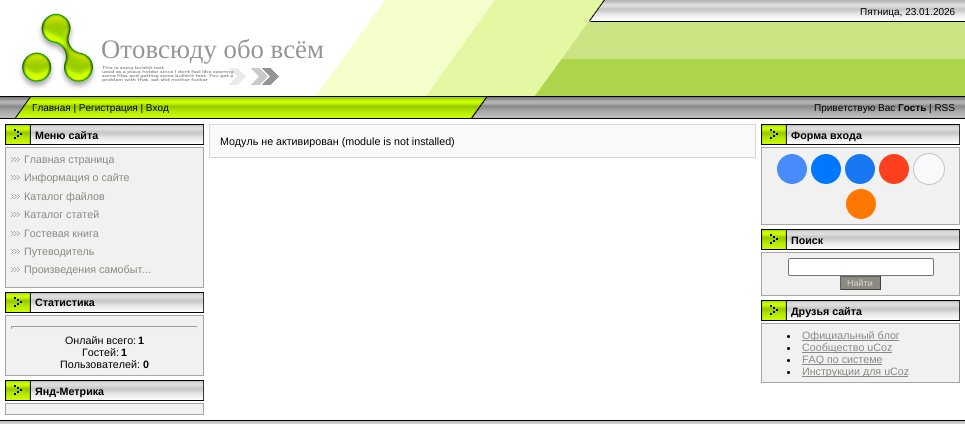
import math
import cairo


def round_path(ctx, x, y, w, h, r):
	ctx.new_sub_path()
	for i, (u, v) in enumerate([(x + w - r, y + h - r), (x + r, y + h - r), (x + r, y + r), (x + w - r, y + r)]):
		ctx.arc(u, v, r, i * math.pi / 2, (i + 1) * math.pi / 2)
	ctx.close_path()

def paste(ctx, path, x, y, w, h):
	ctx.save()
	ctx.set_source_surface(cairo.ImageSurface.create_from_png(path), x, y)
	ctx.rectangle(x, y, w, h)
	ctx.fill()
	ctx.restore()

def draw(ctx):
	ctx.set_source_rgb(1, 1, 1)
	ctx.paint()
	paste(ctx, 'media/1.png', 487, 0, 478, 119)
	paste(ctx, 'media/2.png', 0, 0, 101, 22)
	paste(ctx, 'media/3.png', 101, 0, 504, 22)
	ctx.select_font_face('Liberation Sans')
	ctx.set_font_size(10)
	ctx.set_source_rgb(0, 0, 0)
	ctx.move_to(860, 15)
	ctx.show_text('Пятница, 23.01.2026')
	paste(ctx, 'media/4.png', 0, 22, 101, 74)
	paste(ctx, 'media/5.png', 101, 22, 487, 74)
	ctx.select_font_face('Liberation Serif')
	ctx.set_font_size(26.75)
	ctx.set_source_rgb(0.588, 0.584, 0.584)
	ctx.move_to(101, 58)
	ctx.show_text('Отовсюду обо всём')
	paste(ctx, 'media/6.png', 0, 96, 32, 23)
	paste(ctx, 'media/7.png', 32, 96, 431, 23)
	ctx.select_font_face('Liberation Sans')
	ctx.set_font_size(10)
	ctx.set_source_rgb(0, 0, 0)
	ctx.move_to(32, 111)
	ctx.show_text('Главная | Регистрация | Вход')
	paste(ctx, 'media/8.png', 463, 96, 24, 23)
	ctx.move_to(814, 111)
	ctx.show_text('Приветствую Вас')
	ctx.select_font_face('Liberation Sans', cairo.FONT_SLANT_NORMAL, cairo.FONT_WEIGHT_BOLD)
	ctx.move_to(898, 111)
	ctx.show_text('Гость')
	ctx.select_font_face('Liberation Sans')
	ctx.move_to(929, 111)
	ctx.show_text('| RSS')
	paste(ctx, 'media/9.png', 5, 124, 199, 21)
	ctx.select_font_face('Liberation Sans', cairo.FONT_SLANT_NORMAL, cairo.FONT_WEIGHT_BOLD)
	ctx.set_font_size(10.7)
	ctx.move_to(35, 139)
	ctx.show_text('Меню сайта')
	ctx.set_source_rgb(0.945, 0.945, 0.945)
	ctx.rectangle(5.5, 147.5, 198, 140)
	ctx.fill_preserve()
	ctx.set_source_rgb(0.655, 0.651, 0.651)
	ctx.set_line_width(1)
	ctx.stroke()
	paste(ctx, 'media/10.png', 11, 157, 9, 5)
	ctx.select_font_face('Liberation Sans')
	ctx.set_source_rgb(0.545, 0.533, 0.506)
	ctx.move_to(24, 163)
	ctx.show_text('Главная страница')
	paste(ctx, 'media/10.png', 11, 175, 9, 5)
	ctx.move_to(24, 181)
	ctx.show_text('Информация о сайте')
	paste(ctx, 'media/10.png', 11, 194, 9, 5)
	ctx.move_to(24, 200)
	ctx.show_text('Каталог файлов')
	paste(ctx, 'media/10.png', 11, 212, 9, 5)
	ctx.move_to(24, 218)
	ctx.show_text('Каталог статей')
	paste(ctx, 'media/10.png', 11, 231, 9, 5)
	ctx.move_to(24, 237)
	ctx.show_text('Гостевая книга')
	paste(ctx, 'media/10.png', 11, 249, 9, 5)
	ctx.move_to(24, 255)
	ctx.show_text('Путеводитель')
	paste(ctx, 'media/10.png', 11, 267, 9, 5)
	ctx.move_to(24, 273)
	ctx.show_text('Произведения самобыт...')
	paste(ctx, 'media/9.png', 5, 292, 199, 21)
	ctx.select_font_face('Liberation Sans', cairo.FONT_SLANT_NORMAL, cairo.FONT_WEIGHT_BOLD)
	ctx.set_source_rgb(0, 0, 0)
	ctx.move_to(35, 306)
	ctx.show_text('Статистика')
	ctx.set_source_rgb(0.945, 0.945, 0.945)
	ctx.rectangle(5.5, 315.5, 198, 60)
	ctx.fill_preserve()
	ctx.set_source_rgb(0.655, 0.651, 0.651)
	ctx.stroke()
	ctx.set_source_rgb(0.624, 0.624, 0.624)
	ctx.rectangle(11, 326, 187, 1)
	ctx.fill()
	ctx.set_source_rgb(0.933, 0.933, 0.933)
	ctx.rectangle(197, 326, 1, 3)
	ctx.rectangle(11, 328, 187, 1)
	ctx.fill()
	ctx.set_source_rgb(0.624, 0.624, 0.624)
	ctx.rectangle(11, 326, 1, 3)
	ctx.fill()
	ctx.select_font_face('Liberation Sans')
	ctx.set_source_rgb(0, 0, 0)
	ctx.move_to(65, 344)
	ctx.show_text('Онлайн всего:')
	ctx.select_font_face('Liberation Sans', cairo.FONT_SLANT_NORMAL, cairo.FONT_WEIGHT_BOLD)
	ctx.move_to(138, 344)
	ctx.show_text('1')
	ctx.select_font_face('Liberation Sans')
	ctx.move_to(82, 356)
	ctx.show_text('Гостей:')
	ctx.select_font_face('Liberation Sans', cairo.FONT_SLANT_NORMAL, cairo.FONT_WEIGHT_BOLD)
	ctx.move_to(121, 356)
	ctx.show_text('1')
	ctx.select_font_face('Liberation Sans')
	ctx.move_to(60, 368)
	ctx.show_text('Пользователей:')
	ctx.select_font_face('Liberation Sans', cairo.FONT_SLANT_NORMAL, cairo.FONT_WEIGHT_BOLD)
	ctx.move_to(143, 368)
	ctx.show_text('0')
	paste(ctx, 'media/9.png', 5, 380, 199, 21)
	ctx.move_to(35, 395)
	ctx.show_text('Янд-Метрика')
	ctx.set_source_rgb(0.945, 0.945, 0.945)
	ctx.rectangle(5.5, 403.5, 198, 11)
	ctx.fill_preserve()
	ctx.set_source_rgb(0.655, 0.651, 0.651)
	ctx.stroke()
	ctx.rectangle(209.5, 124.5, 546, 33)
	ctx.set_source_rgb(0.843, 0.843, 0.843)
	ctx.stroke()
	ctx.set_source_rgb(0.973, 0.973, 0.973)
	ctx.rectangle(210, 125, 545, 32)
	ctx.fill()
	ctx.select_font_face('Liberation Sans')
	ctx.set_source_rgb(0, 0, 0)
	ctx.move_to(220, 145)
	ctx.show_text('Модуль не активирован (module is not installed)')
	paste(ctx, 'media/9.png', 761, 124, 199, 21)
	ctx.select_font_face('Liberation Sans', cairo.FONT_SLANT_NORMAL, cairo.FONT_WEIGHT_BOLD)
	ctx.move_to(791, 139)
	ctx.show_text('Форма входа')
	ctx.set_source_rgb(0.945, 0.945, 0.945)
	ctx.rectangle(761.5, 147.5, 198, 77)
	ctx.fill_preserve()
	ctx.set_source_rgb(0.655, 0.651, 0.651)
	ctx.stroke()
	ctx.set_source_rgb(0.286, 0.545, 0.98)
	ctx.arc(792, 169, 15, 0, 2 * math.pi)
	ctx.fill()
	ctx.set_source_rgb(0, 0.467, 1)
	ctx.arc(826, 169, 15, 0, 2 * math.pi)
	ctx.fill()
	ctx.set_source_rgb(0.094, 0.467, 0.949)
	ctx.arc(860, 169, 15, 0, 2 * math.pi)
	ctx.fill()
	ctx.set_source_rgb(0.988, 0.247, 0.114)
	ctx.arc(894, 169, 15, 0, 2 * math.pi)
	ctx.fill()
	ctx.set_source_rgb(0.973, 0.973, 0.988)
	ctx.arc(929, 169, 15.5, 0, 2 * math.pi)
	ctx.fill_preserve()
	ctx.set_source_rgb(0.769, 0.769, 0.769)
	ctx.stroke()
	ctx.set_source_rgb(1, 0.467, 0)
	ctx.arc(861, 204, 15, 0, 2 * math.pi)
	ctx.fill()
	paste(ctx, 'media/9.png', 761, 229, 199, 21)
	ctx.set_source_rgb(0, 0, 0)
	ctx.move_to(791, 244)
	ctx.show_text('Поиск')
	ctx.set_source_rgb(0.945, 0.945, 0.945)
	ctx.rectangle(761.5, 252.5, 198, 43)
	ctx.fill_preserve()
	ctx.set_source_rgb(0.655, 0.651, 0.651)
	ctx.stroke()
	ctx.set_source_rgb(1, 1, 1)
	round_path(ctx, 788.5, 258.5, 145, 17, 1.5)
	ctx.fill_preserve()
	ctx.set_source_rgb(0.463, 0.463, 0.463)
	ctx.stroke()
	ctx.set_source_rgb(0.553, 0.541, 0.514)
	ctx.rectangle(841, 277, 39, 12)
	ctx.fill()
	ctx.set_source_rgb(0.38, 0.369, 0.345)
	ctx.rectangle(840, 276, 41, 1)
	ctx.fill()
	ctx.set_source_rgb(0.255, 0.247, 0.231)
	ctx.rectangle(880, 276, 1, 14)
	ctx.rectangle(840, 289, 41, 1)
	ctx.fill()
	ctx.set_source_rgb(0.38, 0.369, 0.345)
	ctx.rectangle(840, 276, 1, 14)
	ctx.fill()
	ctx.select_font_face('Liberation Sans')
	ctx.set_font_size(9)
	ctx.set_source_rgb(0.855, 0.843, 0.8)
	ctx.move_to(847, 286)
	ctx.show_text('Найти')
	paste(ctx, 'media/9.png', 761, 300, 199, 21)
	ctx.select_font_face('Liberation Sans', cairo.FONT_SLANT_NORMAL, cairo.FONT_WEIGHT_BOLD)
	ctx.set_font_size(10.7)
	ctx.set_source_rgb(0, 0, 0)
	ctx.move_to(791, 315)
	ctx.show_text('Друзья сайта')
	ctx.set_source_rgb(0.945, 0.945, 0.945)
	ctx.rectangle(761.5, 323.5, 198, 59)
	ctx.fill_preserve()
	ctx.set_source_rgb(0.655, 0.651, 0.651)
	ctx.stroke()
	ctx.set_source_rgb(0, 0, 0)
	ctx.arc(788.5, 336.5, 1.5, 0, 2 * math.pi)
	ctx.fill()
	ctx.set_source_rgb(0.545, 0.533, 0.506)
	ctx.rectangle(802, 340, 97, 1)
	ctx.fill()
	ctx.select_font_face('Liberation Sans')
	ctx.move_to(802, 339)
	ctx.show_text('Официальный блог')
	ctx.set_source_rgb(0, 0, 0)
	ctx.new_path()
	ctx.arc(788.5, 348.5, 1.5, 0, 2 * math.pi)
	ctx.fill()
	ctx.set_source_rgb(0.545, 0.533, 0.506)
	ctx.rectangle(802, 352, 90, 1)
	ctx.fill()
	ctx.move_to(802, 351)
	ctx.show_text('Сообщество uCoz')
	ctx.set_source_rgb(0, 0, 0)
	ctx.new_path()
	ctx.arc(788.5, 360.5, 1.5, 0, 2 * math.pi)
	ctx.fill()
	ctx.set_source_rgb(0.545, 0.533, 0.506)
	ctx.rectangle(802, 364, 80, 1)
	ctx.fill()
	ctx.move_to(802, 363)
	ctx.show_text('FAQ по системе')
	ctx.set_source_rgb(0, 0, 0)
	ctx.new_path()
	ctx.arc(788.5, 372.5, 1.5, 0, 2 * math.pi)
	ctx.fill()
	ctx.set_source_rgb(0.545, 0.533, 0.506)
	ctx.rectangle(802, 376, 106, 1)
	ctx.fill()
	ctx.move_to(802, 375)
	ctx.show_text('Инструкции для uCoz')
	paste(ctx, 'media/11.png', 0, 420, 965, 4)


surface = cairo.ImageSurface(cairo.FORMAT_RGB24, 965, 424)
ctx = cairo.Context(surface)
options = cairo.FontOptions()
options.set_hint_metrics(cairo.HINT_METRICS_OFF)
options.set_hint_style(cairo.HINT_STYLE_NONE)
ctx.set_font_options(options)
ctx.set_miter_limit(4)
draw(ctx)
surface.write_to_png('image.png')
